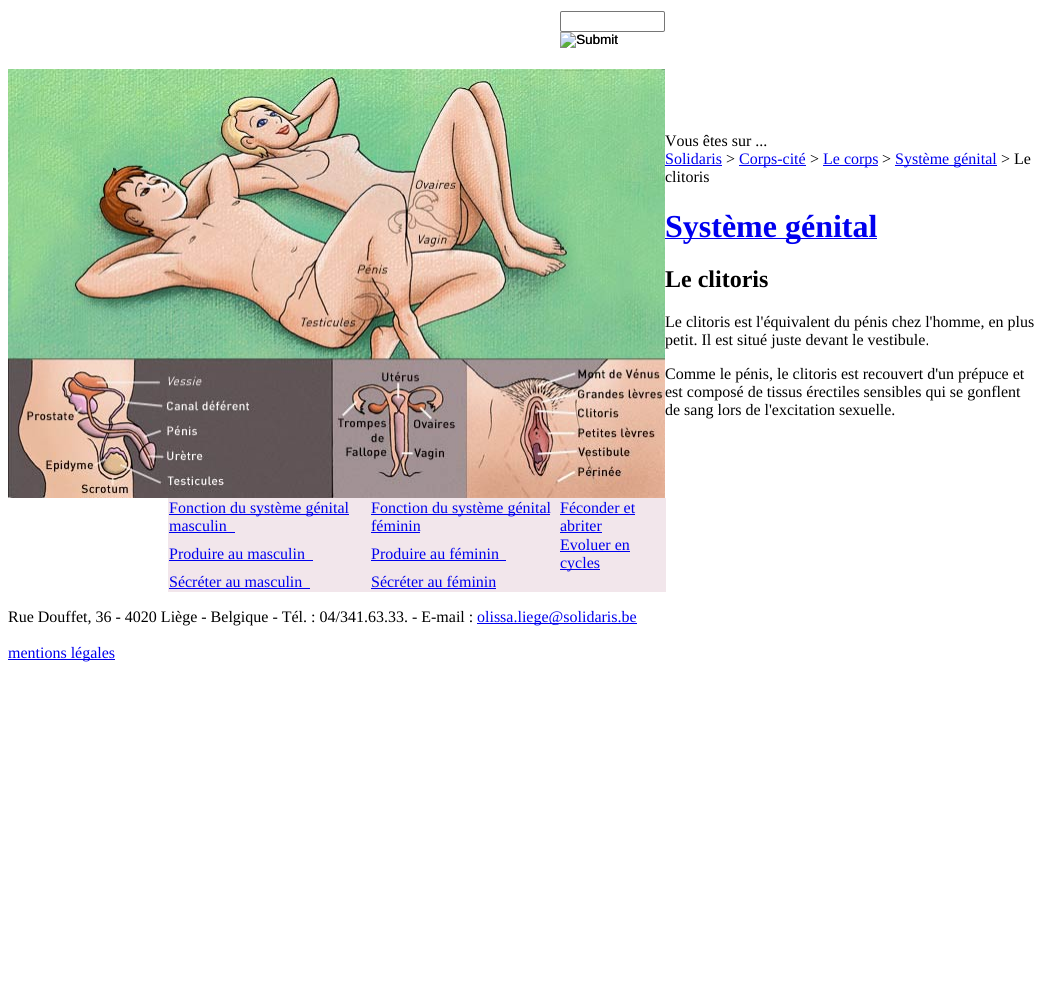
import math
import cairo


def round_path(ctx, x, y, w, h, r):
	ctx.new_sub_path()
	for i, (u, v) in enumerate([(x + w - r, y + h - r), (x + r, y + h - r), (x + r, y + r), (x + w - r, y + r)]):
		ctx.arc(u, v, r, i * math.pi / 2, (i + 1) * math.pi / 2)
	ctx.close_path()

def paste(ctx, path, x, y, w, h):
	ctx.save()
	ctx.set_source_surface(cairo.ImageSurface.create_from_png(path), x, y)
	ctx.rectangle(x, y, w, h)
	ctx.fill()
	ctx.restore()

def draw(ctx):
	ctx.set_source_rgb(1, 1, 1)
	ctx.paint()
	round_path(ctx, 560.5, 11.5, 104, 20, 1.5)
	ctx.set_source_rgb(0.463, 0.463, 0.463)
	ctx.set_line_width(1)
	ctx.stroke()
	paste(ctx, 'media/1.png', 560, 32, 58, 16)
	ctx.select_font_face('Liberation Sans')
	ctx.set_font_size(13.5)
	ctx.set_source_rgb(0, 0, 0)
	ctx.move_to(576, 44)
	ctx.show_text('Submit')
	paste(ctx, 'media/2.png', 8, 69, 657, 429)
	ctx.select_font_face('Liberation Serif')
	ctx.set_font_size(16)
	ctx.move_to(665, 146)
	ctx.show_text('Vous êtes sur ...')
	ctx.set_source_rgb(0, 0, 0.933)
	ctx.move_to(665, 164)
	ctx.show_text('Solidaris')
	ctx.rectangle(665, 165, 57, 1)
	ctx.fill()
	ctx.set_source_rgb(0, 0, 0)
	ctx.move_to(726, 164)
	ctx.show_text('>')
	ctx.set_source_rgb(0, 0, 0.933)
	ctx.rectangle(739, 165, 67, 1)
	ctx.fill()
	ctx.move_to(739, 164)
	ctx.show_text('Corps-cité')
	ctx.set_source_rgb(0, 0, 0)
	ctx.move_to(810, 164)
	ctx.show_text('>')
	ctx.set_source_rgb(0, 0, 0.933)
	ctx.rectangle(823, 165, 55, 1)
	ctx.fill()
	ctx.move_to(823, 164)
	ctx.show_text('Le corps')
	ctx.set_source_rgb(0, 0, 0)
	ctx.move_to(882, 164)
	ctx.show_text('>')
	ctx.set_source_rgb(0, 0, 0.933)
	ctx.rectangle(895, 165, 102, 1)
	ctx.fill()
	ctx.move_to(895, 164)
	ctx.show_text('Système génital')
	ctx.set_source_rgb(0, 0, 0)
	ctx.move_to(1001, 164)
	ctx.show_text('> Le')
	ctx.move_to(665, 182)
	ctx.show_text('clitoris')
	ctx.set_source_rgb(0, 0, 0.933)
	ctx.rectangle(665, 238, 212, 1)
	ctx.fill()
	ctx.select_font_face('Liberation Serif', cairo.FONT_SLANT_NORMAL, cairo.FONT_WEIGHT_BOLD)
	ctx.set_font_size(32)
	ctx.move_to(665, 237)
	ctx.show_text('Système génital')
	ctx.set_font_size(24)
	ctx.set_source_rgb(0, 0, 0)
	ctx.move_to(665, 287)
	ctx.show_text('Le clitoris')
	ctx.select_font_face('Liberation Serif')
	ctx.set_font_size(16)
	for x, y, s in [
		(665, 327, 'Le clitoris est l\'équivalent du pénis chez l\'homme, en plus'),
		(665, 345, 'petit. Il est situé juste devant le vestibule.'),
		(665, 379, 'Comme le pénis, le clitoris est recouvert d\'un prépuce et'),
		(665, 397, 'est composé de tissus érectiles sensibles qui se gonflent'),
		(665, 415, 'de sang lors de l\'excitation sexuelle.'),
	]:
		ctx.move_to(x, y)
		ctx.show_text(s)
	ctx.set_source_rgb(0.949, 0.902, 0.918)
	ctx.rectangle(168, 498, 498, 94)
	ctx.fill()
	ctx.set_source_rgb(0, 0, 0.933)
	ctx.rectangle(169, 514, 180, 1)
	ctx.fill()
	ctx.move_to(169, 513)
	ctx.show_text('Fonction du système génital')
	ctx.move_to(169, 531)
	ctx.show_text('masculin')
	ctx.rectangle(169, 532, 66, 1)
	ctx.fill()
	ctx.rectangle(371, 514, 179, 1)
	ctx.fill()
	ctx.move_to(371, 513)
	ctx.show_text('Fonction du système génital')
	ctx.move_to(371, 531)
	ctx.show_text('féminin')
	ctx.rectangle(371, 532, 49, 1)
	ctx.fill()
	ctx.move_to(560, 513)
	ctx.show_text('Féconder et')
	ctx.rectangle(560, 514, 75, 1)
	ctx.fill()
	ctx.move_to(560, 531)
	ctx.show_text('abriter')
	ctx.rectangle(560, 532, 42, 1)
	ctx.fill()
	ctx.move_to(169, 559)
	ctx.show_text('Produire au masculin')
	ctx.rectangle(169, 560, 144, 1)
	ctx.fill()
	ctx.move_to(371, 559)
	ctx.show_text('Produire au féminin')
	ctx.rectangle(371, 560, 135, 1)
	ctx.fill()
	ctx.move_to(560, 550)
	ctx.show_text('Evoluer en')
	ctx.rectangle(560, 551, 70, 1)
	ctx.fill()
	ctx.rectangle(560, 569, 40, 1)
	ctx.fill()
	ctx.move_to(560, 568)
	ctx.show_text('cycles')
	ctx.move_to(169, 587)
	ctx.show_text('Sécréter au masculin')
	ctx.rectangle(169, 588, 141, 1)
	ctx.fill()
	ctx.move_to(371, 587)
	ctx.show_text('Sécréter au féminin')
	ctx.rectangle(371, 588, 125, 1)
	ctx.fill()
	ctx.set_source_rgb(0, 0, 0)
	ctx.move_to(8, 622)
	ctx.show_text('Rue Douffet, 36 - 4020 Liège - Belgique - Tél. : 04/341.63.33. - E-mail :')
	ctx.set_source_rgb(0, 0, 0.933)
	ctx.rectangle(477, 623, 160, 1)
	ctx.fill()
	ctx.move_to(477, 622)
	ctx.show_text('olissa.liege@solidaris.be')
	ctx.rectangle(8, 659, 107, 1)
	ctx.fill()
	ctx.move_to(8, 658)
	ctx.show_text('mentions légales')


surface = cairo.ImageSurface(cairo.FORMAT_RGB24, 1047, 1003)
ctx = cairo.Context(surface)
options = cairo.FontOptions()
options.set_hint_metrics(cairo.HINT_METRICS_OFF)
options.set_hint_style(cairo.HINT_STYLE_NONE)
ctx.set_font_options(options)
ctx.set_miter_limit(4)
draw(ctx)
surface.write_to_png('image.png')
